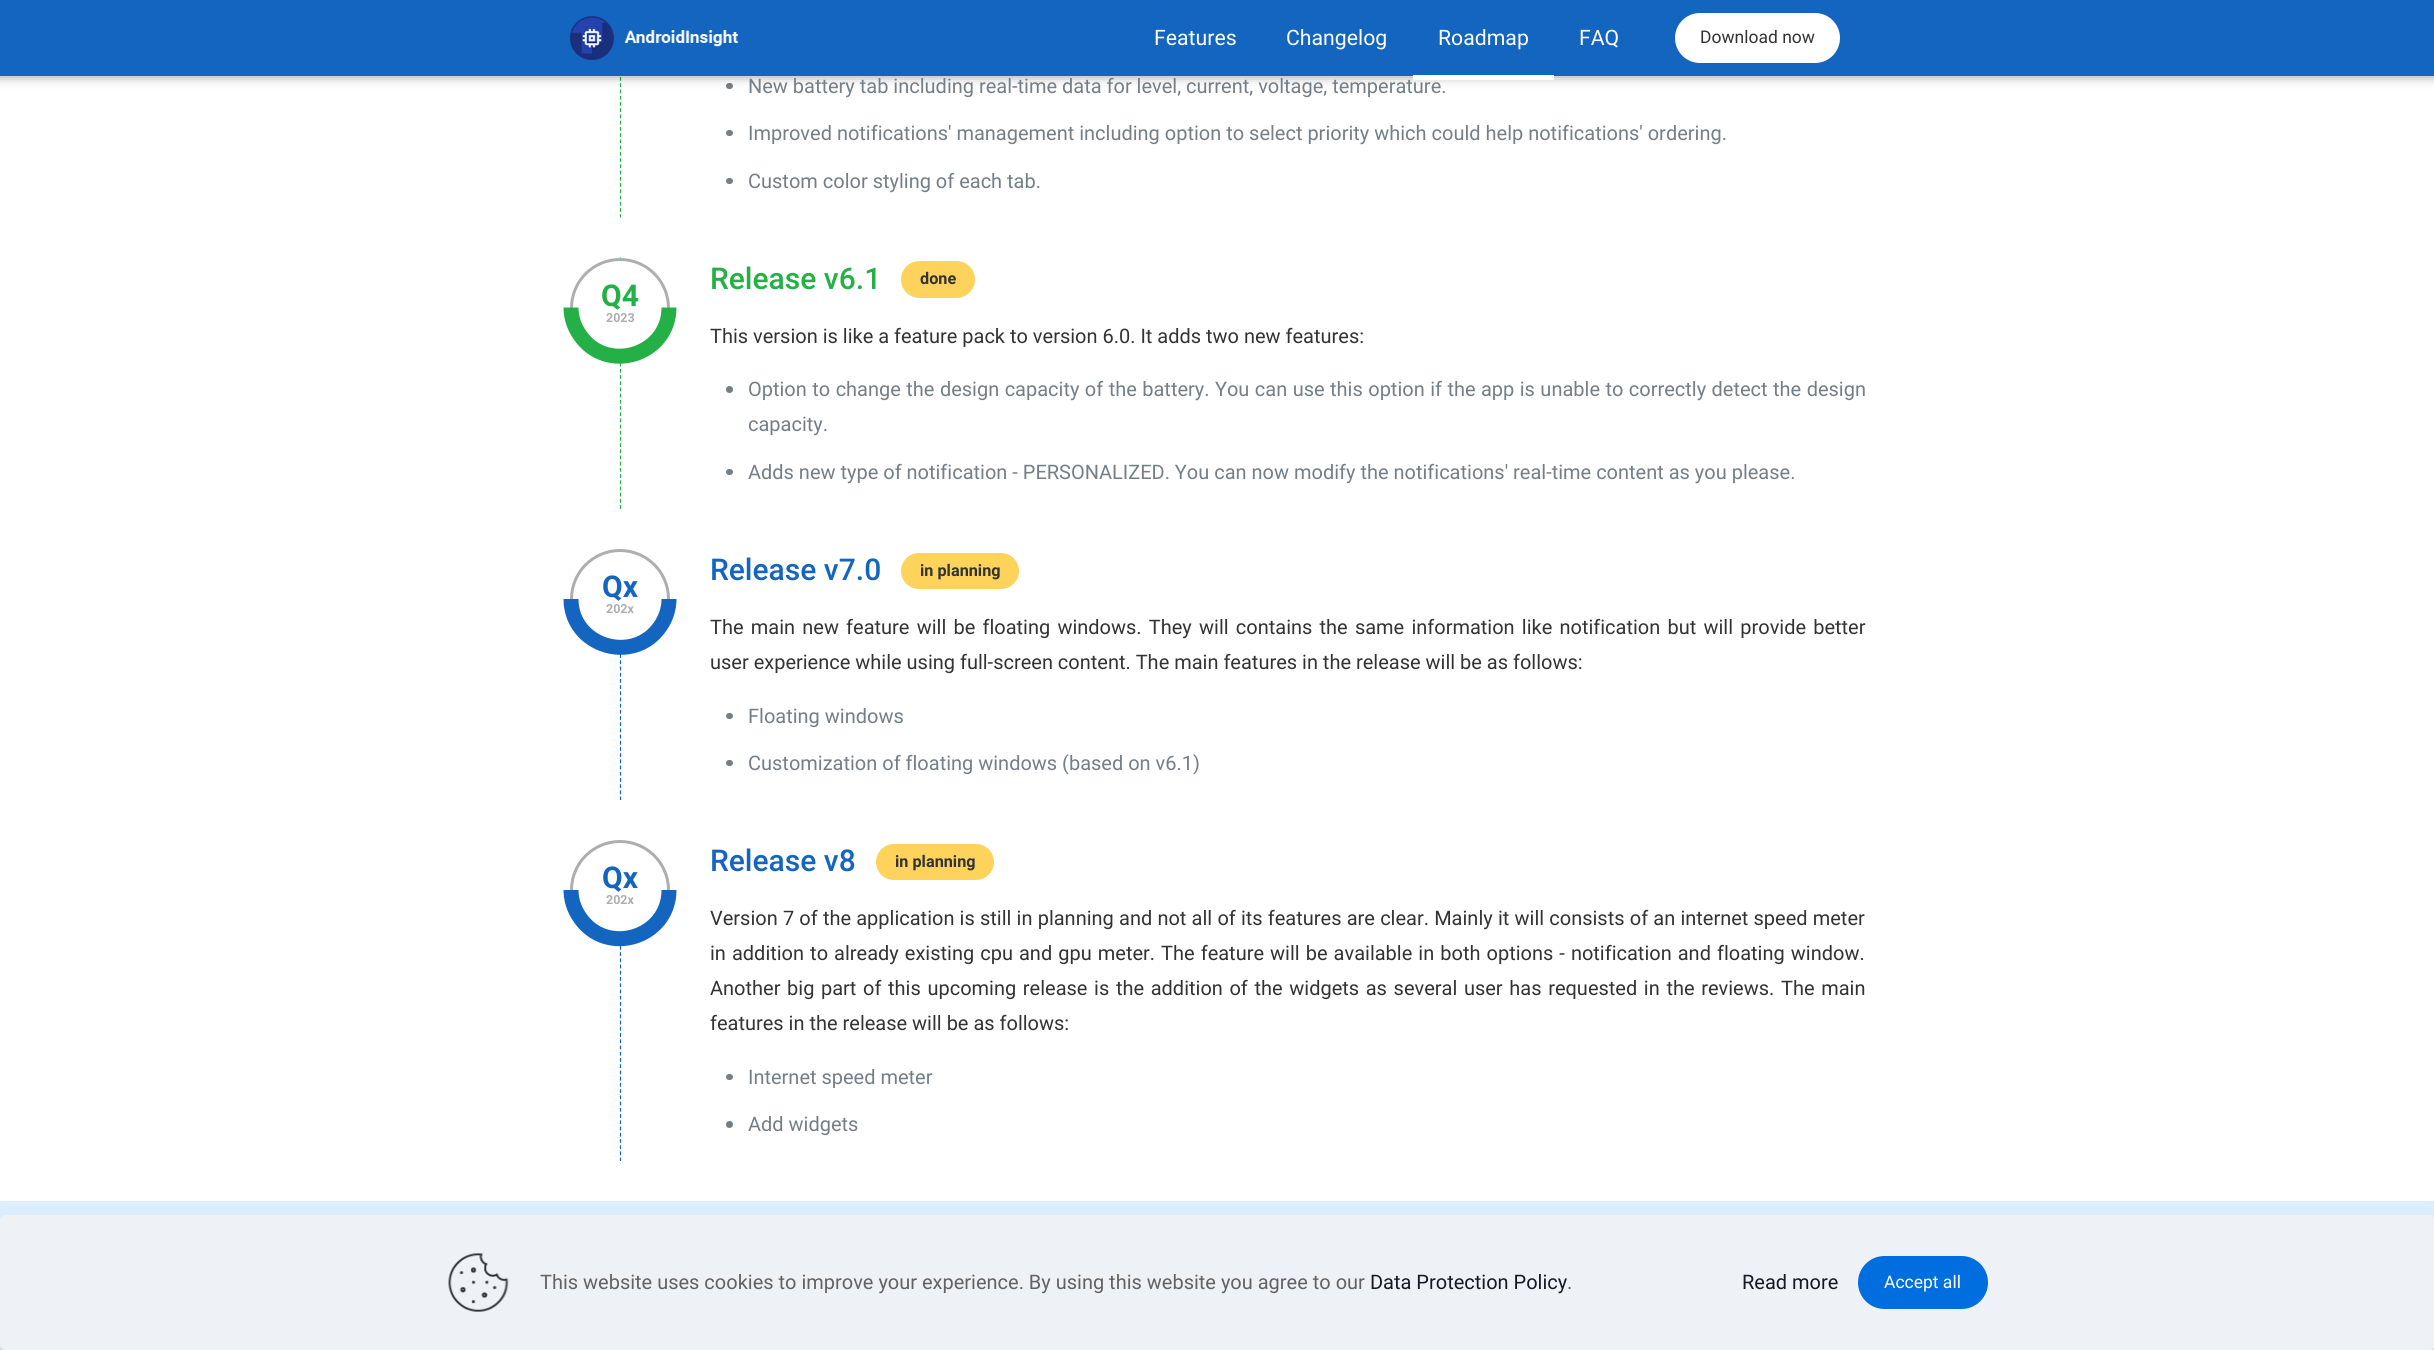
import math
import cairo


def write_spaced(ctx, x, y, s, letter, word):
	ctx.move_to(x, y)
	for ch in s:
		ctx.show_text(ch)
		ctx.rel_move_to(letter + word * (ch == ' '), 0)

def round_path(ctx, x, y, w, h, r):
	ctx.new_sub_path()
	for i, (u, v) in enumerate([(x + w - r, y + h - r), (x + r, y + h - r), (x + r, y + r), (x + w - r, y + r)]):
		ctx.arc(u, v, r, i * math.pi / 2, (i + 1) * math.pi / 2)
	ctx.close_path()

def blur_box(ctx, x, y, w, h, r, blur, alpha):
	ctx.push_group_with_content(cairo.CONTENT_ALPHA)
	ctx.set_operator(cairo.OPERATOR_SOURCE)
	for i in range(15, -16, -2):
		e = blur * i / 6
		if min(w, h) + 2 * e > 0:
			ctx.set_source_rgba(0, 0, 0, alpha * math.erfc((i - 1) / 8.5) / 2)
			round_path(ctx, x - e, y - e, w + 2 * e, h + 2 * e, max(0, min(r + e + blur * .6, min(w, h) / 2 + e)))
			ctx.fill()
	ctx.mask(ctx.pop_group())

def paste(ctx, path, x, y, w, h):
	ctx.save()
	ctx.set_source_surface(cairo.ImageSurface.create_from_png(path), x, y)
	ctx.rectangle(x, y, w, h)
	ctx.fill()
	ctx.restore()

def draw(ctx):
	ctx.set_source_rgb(1, 1, 1)
	ctx.paint()
	ctx.new_path()
	ctx.move_to(620.5, -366)
	ctx.line_to(620.5, 217.5)
	ctx.set_source_rgb(0.141, 0.69, 0.278)
	ctx.set_line_width(1.2)
	ctx.set_dash([3.75, 2.49])
	ctx.stroke()
	ctx.set_source_rgb(0.451, 0.494, 0.525)
	round_path(ctx, 726, 83, 7, 6, 3)
	ctx.fill()
	ctx.set_source_rgb(0, 0, 0)
	blur_box(ctx, -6, -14, 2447, 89, 0, 6, 0.5)
	ctx.set_source_rgb(0.082, 0.396, 0.753)
	ctx.rectangle(0, 0, 2434, 76)
	ctx.fill()
	paste(ctx, 'media/1.png', 570, 16, 169, 44)
	ctx.select_font_face('Roboto')
	ctx.set_font_size(21.25)
	ctx.set_source_rgb(1, 1, 1)
	for x, y, s in [
		(1154, 45, 'Features'),
		(1286, 45, 'Changelog'),
		(1438, 45, 'Roadmap'),
	]:
		ctx.move_to(x, y)
		ctx.show_text(s)
	ctx.set_font_size(20)
	ctx.set_source_rgb(0.451, 0.494, 0.525)
	ctx.move_to(748, 93)
	ctx.show_text('New battery tab including real-time data for level, current, voltage, temperature.')
	ctx.set_source_rgb(1, 1, 1)
	ctx.rectangle(1413, 75, 141, 5)
	ctx.fill()
	ctx.set_font_size(21.25)
	ctx.move_to(1579, 45)
	ctx.show_text('FAQ')
	round_path(ctx, 1675, 13, 165, 50, 25)
	ctx.fill()
	ctx.set_font_size(17.5)
	ctx.set_source_rgb(0.2, 0.2, 0.2)
	ctx.move_to(1700, 43)
	ctx.show_text('Download now')
	ctx.set_source_rgb(0.451, 0.494, 0.525)
	round_path(ctx, 726, 130, 7, 6, 3)
	ctx.fill()
	ctx.set_font_size(20)
	ctx.move_to(748, 140)
	ctx.show_text('Improved notifications\' management including option to select priority which could help notifications\' ordering.')
	round_path(ctx, 726, 178, 7, 6, 3)
	ctx.fill()
	ctx.move_to(748, 188)
	ctx.show_text('Custom color styling of each tab.')
	ctx.new_path()
	ctx.move_to(620.5, 257.5)
	ctx.line_to(620.5, 509)
	ctx.set_source_rgb(0.141, 0.69, 0.278)
	ctx.set_dash([3.75, 2.44])
	ctx.stroke()
	ctx.set_source_rgb(1, 1, 1)
	ctx.rectangle(619, 258, 3, 100)
	ctx.fill()
	ctx.select_font_face('Roboto', cairo.FONT_SLANT_NORMAL, cairo.FONT_WEIGHT_BOLD)
	ctx.set_font_size(30)
	ctx.set_source_rgb(0.141, 0.69, 0.278)
	ctx.move_to(601, 306)
	ctx.show_text('Q4')
	ctx.new_path()
	ctx.arc(620, 308, 48.5, 0, 2 * math.pi)
	ctx.set_source_rgb(0.682, 0.682, 0.682)
	ctx.set_line_width(3)
	ctx.set_dash([])
	ctx.stroke()
	ctx.set_font_size(12.5)
	ctx.move_to(606, 322)
	ctx.show_text('2023')
	ctx.new_path()
	ctx.move_to(669, 307.5)
	ctx.curve_to(669, 355.5, 606, 374.5, 579.5, 334.5)
	ctx.curve_to(574, 326.5, 571, 317, 571, 307.5)
	ctx.set_source_rgb(0.141, 0.69, 0.278)
	ctx.set_line_width(15)
	ctx.stroke()
	ctx.select_font_face('Roboto Medium')
	ctx.set_font_size(30)
	ctx.move_to(710, 289)
	ctx.show_text('Release v6.1')
	ctx.set_source_rgb(0.992, 0.827, 0.357)
	round_path(ctx, 901, 261, 74, 37, 18.5)
	ctx.fill()
	ctx.select_font_face('Roboto', cairo.FONT_SLANT_NORMAL, cairo.FONT_WEIGHT_BOLD)
	ctx.set_font_size(16.25)
	ctx.set_source_rgb(0.2, 0.2, 0.2)
	ctx.move_to(920, 284)
	ctx.show_text('done')
	ctx.select_font_face('Roboto')
	ctx.set_font_size(20)
	ctx.move_to(710, 343)
	ctx.show_text('This version is like a feature pack to version 6.0. It adds two new features:')
	ctx.set_source_rgb(0.451, 0.494, 0.525)
	ctx.new_path()
	ctx.arc(729.5, 389.5, 3.5, 0, 2 * math.pi)
	ctx.fill()
	write_spaced(ctx, 748, 396, 'Option to change the design capacity of the battery. You can use this option if the app is unable to correctly detect the design', 0, 0.5)
	ctx.move_to(748, 431)
	ctx.show_text('capacity.')
	round_path(ctx, 726, 469, 7, 6, 3)
	ctx.fill()
	ctx.move_to(748, 479)
	ctx.show_text('Adds new type of notification - PERSONALIZED. You can now modify the notifications\' real-time content as you please.')
	ctx.new_path()
	ctx.move_to(620.5, 549)
	ctx.line_to(620.5, 800)
	ctx.set_source_rgb(0.082, 0.396, 0.753)
	ctx.set_line_width(1.2)
	ctx.set_dash([3.75, 2.44])
	ctx.stroke()
	ctx.set_source_rgb(1, 1, 1)
	ctx.rectangle(619, 549, 3, 100)
	ctx.fill()
	ctx.select_font_face('Roboto', cairo.FONT_SLANT_NORMAL, cairo.FONT_WEIGHT_BOLD)
	ctx.set_font_size(30)
	ctx.set_source_rgb(0.082, 0.396, 0.753)
	ctx.move_to(602, 597)
	ctx.show_text('Qx')
	ctx.new_path()
	ctx.arc(620, 599, 48.5, 0, 2 * math.pi)
	ctx.set_source_rgb(0.682, 0.682, 0.682)
	ctx.set_line_width(3)
	ctx.set_dash([])
	ctx.stroke()
	ctx.set_font_size(12.5)
	ctx.move_to(606, 613)
	ctx.show_text('202x')
	ctx.new_path()
	ctx.move_to(669, 599)
	ctx.curve_to(669, 608.5, 666, 618, 660.5, 626)
	ctx.curve_to(634, 665.5, 571, 646.5, 571, 599)
	ctx.set_source_rgb(0.082, 0.396, 0.753)
	ctx.set_line_width(15)
	ctx.stroke()
	ctx.select_font_face('Roboto Medium')
	ctx.set_font_size(30)
	ctx.move_to(710, 580)
	ctx.show_text('Release v7.0')
	ctx.set_source_rgb(0.992, 0.827, 0.357)
	round_path(ctx, 901, 553, 118, 36, 18)
	ctx.fill()
	ctx.select_font_face('Roboto', cairo.FONT_SLANT_NORMAL, cairo.FONT_WEIGHT_BOLD)
	ctx.set_font_size(16.25)
	ctx.set_source_rgb(0.2, 0.2, 0.2)
	ctx.move_to(920, 576)
	ctx.show_text('in planning')
	ctx.select_font_face('Roboto')
	ctx.set_font_size(20)
	write_spaced(ctx, 710, 634, 'The main new feature will be floating windows. They will contains the same information like notification but will provide better', 0, 2.25)
	ctx.move_to(710, 669)
	ctx.show_text('user experience while using full-screen content. The main features in the release will be as follows:')
	ctx.set_source_rgb(0.451, 0.494, 0.525)
	round_path(ctx, 726, 713, 7, 6, 3)
	ctx.fill()
	ctx.move_to(748, 723)
	ctx.show_text('Floating windows')
	round_path(ctx, 726, 760, 7, 6, 3)
	ctx.fill()
	ctx.move_to(748, 770)
	ctx.show_text('Customization of floating windows (based on v6.1)')
	ctx.new_path()
	ctx.move_to(620.5, 840)
	ctx.line_to(620.5, 1161)
	ctx.set_source_rgb(0.082, 0.396, 0.753)
	ctx.set_line_width(1.2)
	ctx.set_dash([3.75, 2.48])
	ctx.stroke()
	ctx.set_source_rgb(1, 1, 1)
	ctx.rectangle(619, 840, 3, 100)
	ctx.fill()
	ctx.select_font_face('Roboto', cairo.FONT_SLANT_NORMAL, cairo.FONT_WEIGHT_BOLD)
	ctx.set_font_size(30)
	ctx.set_source_rgb(0.082, 0.396, 0.753)
	ctx.move_to(602, 888)
	ctx.show_text('Qx')
	ctx.new_path()
	ctx.arc(620, 890, 48.5, 0, 2 * math.pi)
	ctx.set_source_rgb(0.682, 0.682, 0.682)
	ctx.set_line_width(3)
	ctx.set_dash([])
	ctx.stroke()
	ctx.set_font_size(12.5)
	ctx.move_to(606, 904)
	ctx.show_text('202x')
	ctx.new_path()
	ctx.move_to(669, 890)
	ctx.curve_to(669, 938, 606, 957, 579.5, 917)
	ctx.curve_to(574, 909, 571, 899.5, 571, 890)
	ctx.set_source_rgb(0.082, 0.396, 0.753)
	ctx.set_line_width(15)
	ctx.stroke()
	ctx.select_font_face('Roboto Medium')
	ctx.set_font_size(30)
	ctx.move_to(710, 871)
	ctx.show_text('Release v8')
	ctx.set_source_rgb(0.992, 0.827, 0.357)
	round_path(ctx, 876, 844, 118, 36, 18)
	ctx.fill()
	ctx.select_font_face('Roboto', cairo.FONT_SLANT_NORMAL, cairo.FONT_WEIGHT_BOLD)
	ctx.set_font_size(16.25)
	ctx.set_source_rgb(0.2, 0.2, 0.2)
	ctx.move_to(895, 867)
	ctx.show_text('in planning')
	ctx.select_font_face('Roboto')
	ctx.set_font_size(20)
	write_spaced(ctx, 710, 925, 'Version 7 of the application is still in planning and not all of its features are clear. Mainly it will consists of an internet speed meter', 0, 0.25)
	write_spaced(ctx, 710, 960, 'in addition to already existing cpu and gpu meter. The feature will be available in both options - notification and floating window.', 0, 1.1)
	write_spaced(ctx, 710, 995, 'Another big part of this upcoming release is the addition of the widgets as several user has requested in the reviews. The main', 0, 1.7)
	ctx.move_to(710, 1030)
	ctx.show_text('features in the release will be as follows:')
	ctx.set_source_rgb(0.451, 0.494, 0.525)
	round_path(ctx, 726, 1074, 7, 6, 3)
	ctx.fill()
	ctx.move_to(748, 1084)
	ctx.show_text('Internet speed meter')
	ctx.new_path()
	ctx.arc(729.5, 1124.5, 3.5, 0, 2 * math.pi)
	ctx.fill()
	ctx.move_to(748, 1131)
	ctx.show_text('Add widgets')
	ctx.set_source_rgb(0.871, 0.941, 1)
	ctx.rectangle(0, 1201, 2434, 149)
	ctx.fill()
	ctx.set_source_rgb(0.004, 0.027, 0.153)
	blur_box(ctx, 0, 1234, 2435, 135, 6, 19, 0.13)
	ctx.set_source_rgb(0.933, 0.949, 0.961)
	round_path(ctx, 0, 1215, 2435, 135, 6)
	ctx.fill()
	paste(ctx, 'media/2.png', 448, 1253, 61, 59)
	ctx.set_source_rgb(0.384, 0.384, 0.384)
	ctx.move_to(540, 1289)
	ctx.show_text('This website uses cookies to improve your experience. By using this website you agree to our')
	ctx.set_source_rgb(0.086, 0.098, 0.133)
	ctx.move_to(1370, 1289)
	ctx.show_text('Data Protection Policy')
	ctx.set_source_rgb(0.384, 0.384, 0.384)
	ctx.move_to(1567, 1289)
	ctx.show_text('.')
	ctx.set_source_rgb(0.086, 0.098, 0.133)
	ctx.move_to(1742, 1289)
	ctx.show_text('Read more')
	ctx.set_source_rgb(0, 0.431, 0.875)
	round_path(ctx, 1858, 1256, 130, 53, 26.5)
	ctx.fill()
	ctx.set_font_size(17.5)
	ctx.set_source_rgb(1, 1, 1)
	ctx.move_to(1884, 1288)
	ctx.show_text('Accept all')


surface = cairo.ImageSurface(cairo.FORMAT_RGB24, 2434, 1350)
ctx = cairo.Context(surface)
options = cairo.FontOptions()
options.set_hint_metrics(cairo.HINT_METRICS_OFF)
options.set_hint_style(cairo.HINT_STYLE_NONE)
ctx.set_font_options(options)
ctx.set_miter_limit(4)
draw(ctx)
surface.write_to_png('image.png')
